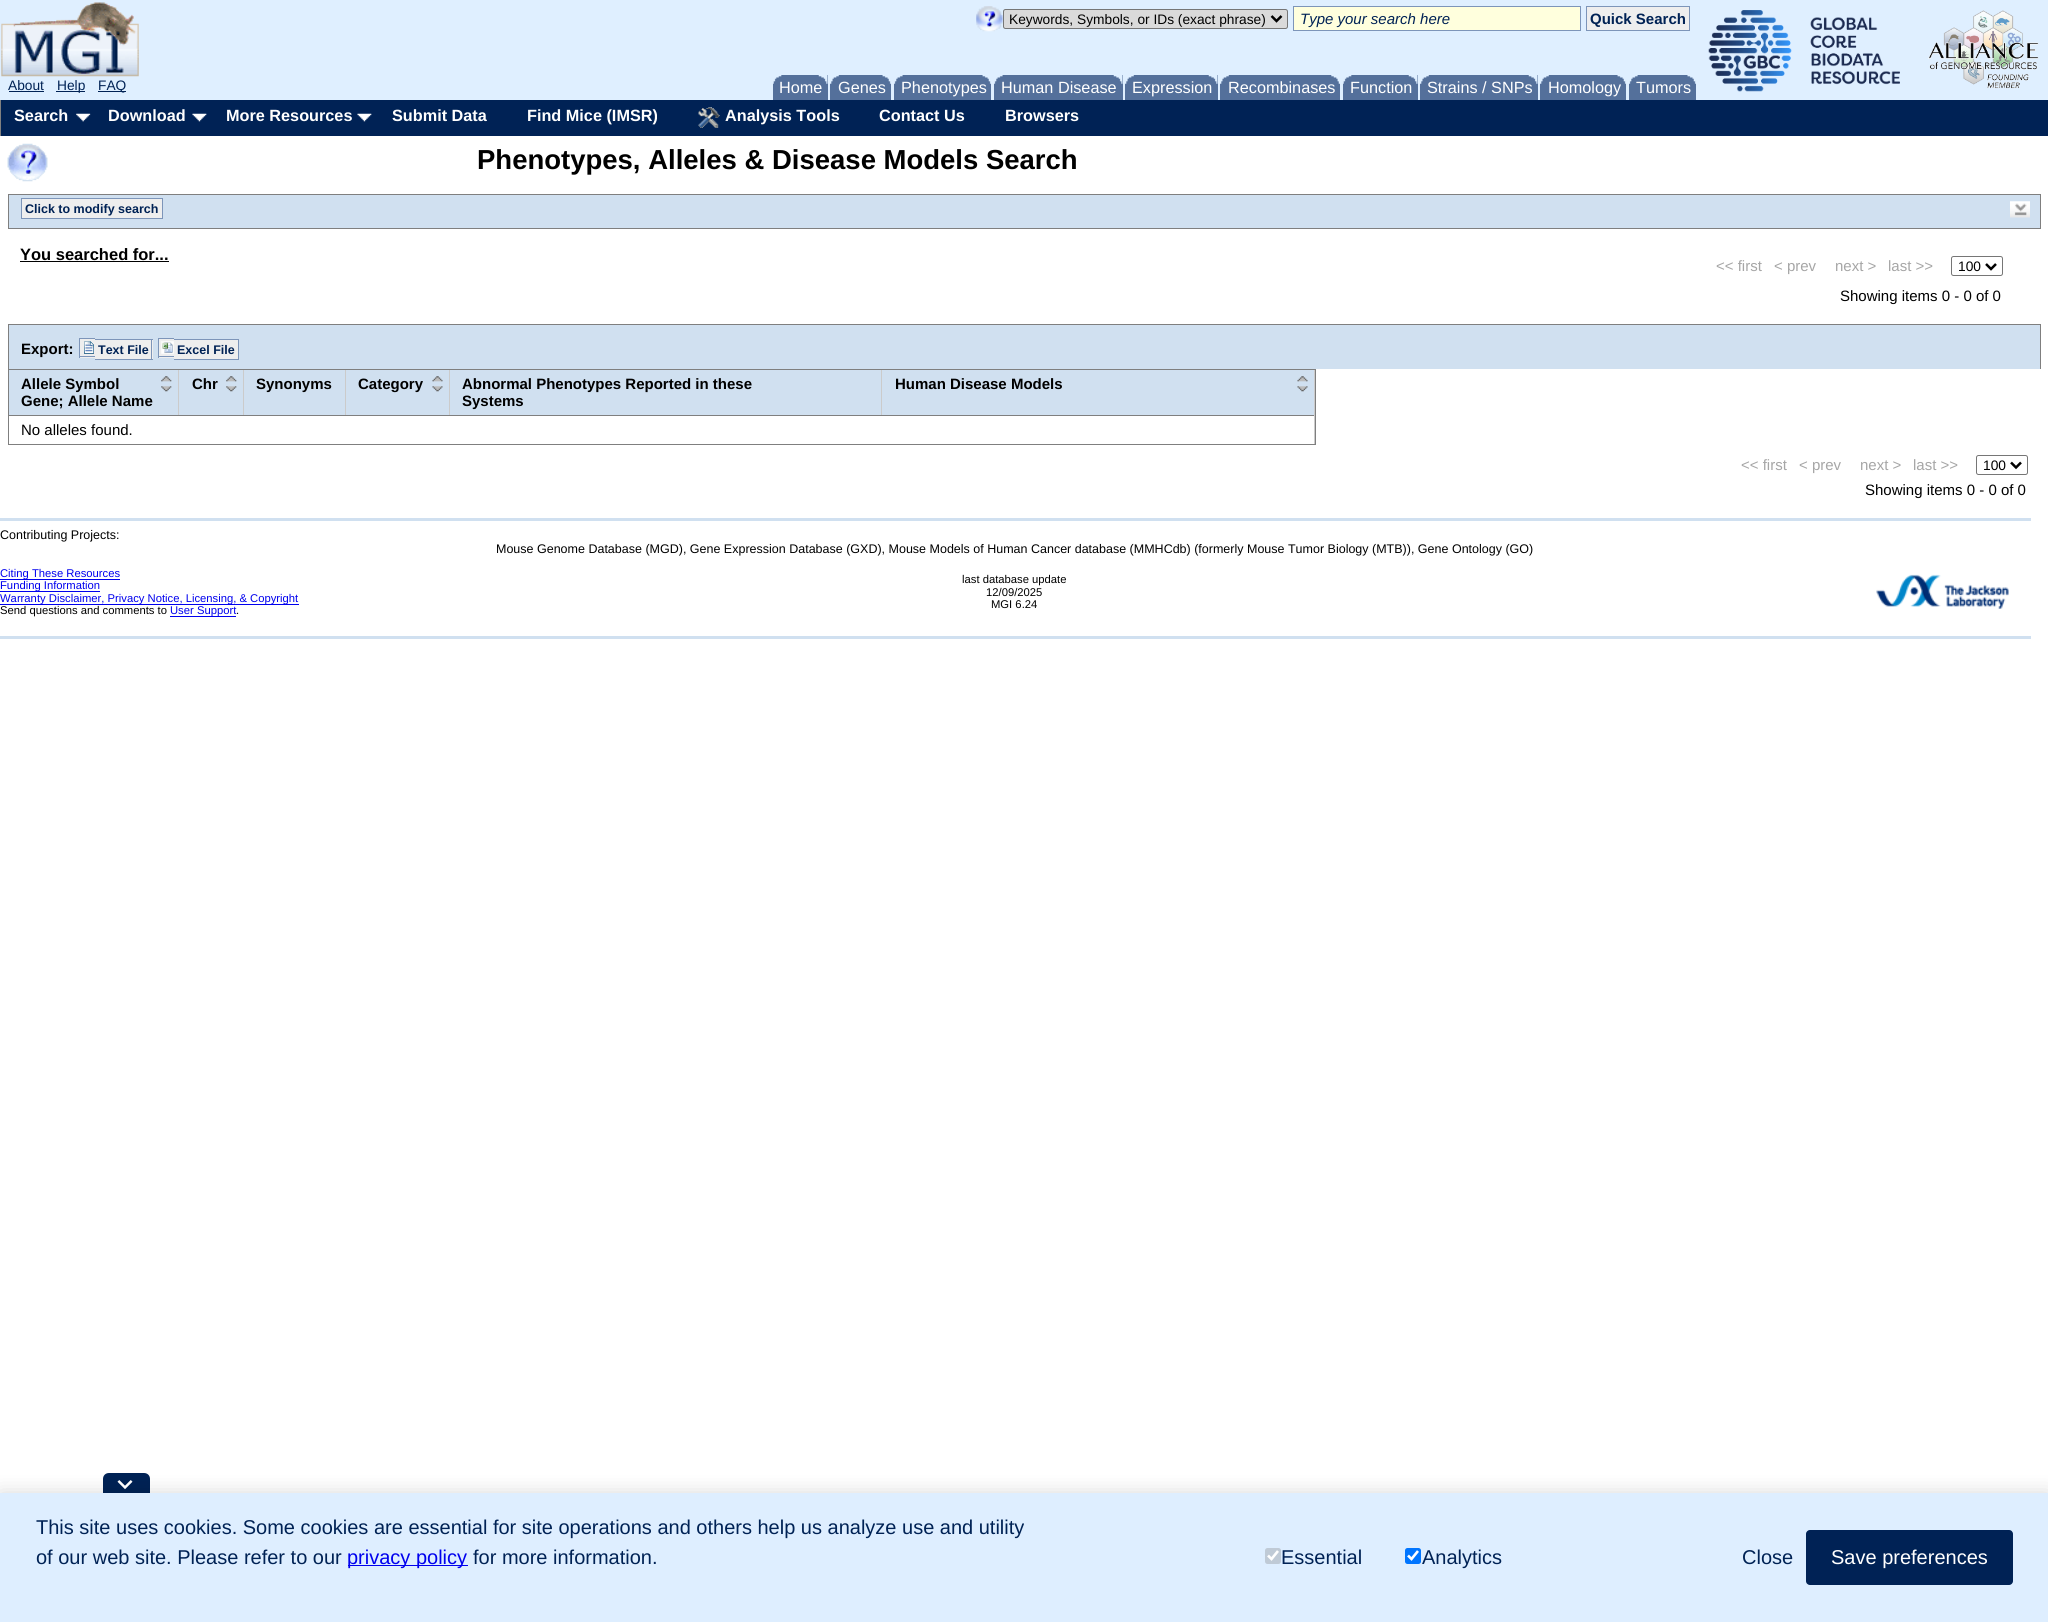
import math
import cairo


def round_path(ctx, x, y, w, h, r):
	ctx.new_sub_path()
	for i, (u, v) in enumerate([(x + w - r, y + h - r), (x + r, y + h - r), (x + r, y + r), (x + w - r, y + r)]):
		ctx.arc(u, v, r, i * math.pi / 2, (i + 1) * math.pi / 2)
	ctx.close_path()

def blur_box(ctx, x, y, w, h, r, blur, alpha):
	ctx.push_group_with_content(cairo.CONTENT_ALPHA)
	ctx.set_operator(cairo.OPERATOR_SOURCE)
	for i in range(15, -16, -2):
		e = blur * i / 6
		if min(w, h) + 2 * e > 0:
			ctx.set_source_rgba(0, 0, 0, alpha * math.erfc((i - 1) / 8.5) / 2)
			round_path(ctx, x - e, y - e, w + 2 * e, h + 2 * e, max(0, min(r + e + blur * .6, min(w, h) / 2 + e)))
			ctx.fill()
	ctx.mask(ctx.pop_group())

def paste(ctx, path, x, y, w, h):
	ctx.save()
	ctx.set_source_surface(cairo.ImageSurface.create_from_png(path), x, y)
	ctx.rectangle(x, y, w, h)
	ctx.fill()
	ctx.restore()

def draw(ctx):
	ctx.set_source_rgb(1, 1, 1)
	ctx.paint()
	ctx.set_source_rgb(0.875, 0.937, 1)
	ctx.rectangle(0, 0, 2048, 100)
	ctx.fill()
	paste(ctx, 'media/1.png', 976, 6, 27, 26)
	ctx.set_source_rgb(0.855, 0.855, 0.855)
	round_path(ctx, 1003.5, 9.5, 284, 19, 2)
	ctx.fill_preserve()
	ctx.set_source_rgb(0.463, 0.463, 0.463)
	ctx.set_line_width(1)
	ctx.stroke()
	ctx.new_path()
	ctx.move_to(1271.5, 16)
	ctx.line_to(1276.5, 21)
	ctx.line_to(1281.5, 16)
	ctx.set_source_rgb(0, 0, 0)
	ctx.set_line_width(2.5)
	ctx.stroke()
	ctx.select_font_face('Liberation Sans')
	ctx.set_font_size(13.75)
	ctx.move_to(1009, 24)
	ctx.show_text('Keywords, Symbols, or IDs (exact phrase)')
	ctx.set_source_rgb(1, 1, 0.867)
	ctx.rectangle(1293.5, 6.5, 287, 24)
	ctx.fill_preserve()
	ctx.set_source_rgb(0.49, 0.584, 0.725)
	ctx.set_line_width(1)
	ctx.stroke()
	ctx.select_font_face('Liberation Sans', cairo.FONT_SLANT_ITALIC)
	ctx.set_font_size(15)
	ctx.set_source_rgb(0, 0.133, 0.333)
	ctx.move_to(1300, 24)
	ctx.show_text('Type your search here')
	ctx.set_source_rgb(0.933, 0.933, 0.933)
	ctx.rectangle(1586.5, 6.5, 103, 24)
	ctx.fill_preserve()
	ctx.set_source_rgb(0.49, 0.584, 0.725)
	ctx.stroke()
	ctx.select_font_face('Liberation Sans', cairo.FONT_SLANT_NORMAL, cairo.FONT_WEIGHT_BOLD)
	ctx.set_source_rgb(0, 0.133, 0.333)
	ctx.move_to(1590, 24)
	ctx.show_text('Quick Search')
	paste(ctx, 'media/2.png', 1708, 10, 192, 82)
	paste(ctx, 'media/3.png', 1928, 10, 111, 79)
	paste(ctx, 'media/4.png', 1, 2, 138, 75)
	ctx.select_font_face('Liberation Sans')
	ctx.set_font_size(13.75)
	ctx.move_to(8, 90)
	ctx.show_text('About')
	ctx.rectangle(9, 91, 35, 1)
	ctx.fill()
	ctx.rectangle(56, 91, 29, 1)
	ctx.fill()
	ctx.move_to(57, 90)
	ctx.show_text('Help')
	ctx.rectangle(98, 91, 28, 1)
	ctx.fill()
	ctx.move_to(98, 90)
	ctx.show_text('FAQ')
	ctx.set_source_rgb(0.329, 0.439, 0.608)
	ctx.rectangle(773, 75, 55, 25)
	ctx.fill()
	paste(ctx, 'media/5.png', 773, 75, 9, 9)
	paste(ctx, 'media/6.png', 818, 75, 10, 9)
	ctx.set_font_size(16.25)
	ctx.set_source_rgb(1, 1, 1)
	ctx.move_to(779, 93)
	ctx.show_text('Home')
	ctx.set_source_rgb(0.329, 0.439, 0.608)
	ctx.rectangle(830, 75, 61, 25)
	ctx.fill()
	paste(ctx, 'media/7.png', 830, 75, 9, 9)
	paste(ctx, 'media/8.png', 882, 75, 9, 9)
	ctx.set_source_rgb(1, 1, 1)
	ctx.move_to(838, 93)
	ctx.show_text('Genes')
	ctx.set_source_rgb(0.329, 0.439, 0.608)
	ctx.rectangle(894, 75, 97, 25)
	ctx.fill()
	paste(ctx, 'media/9.png', 894, 75, 9, 9)
	paste(ctx, 'media/8.png', 982, 75, 9, 9)
	ctx.set_source_rgb(1, 1, 1)
	ctx.move_to(901, 93)
	ctx.show_text('Phenotypes')
	ctx.set_source_rgb(0.329, 0.439, 0.608)
	ctx.rectangle(994, 75, 129, 25)
	ctx.fill()
	paste(ctx, 'media/9.png', 994, 75, 9, 9)
	paste(ctx, 'media/6.png', 1113, 75, 10, 9)
	ctx.set_source_rgb(1, 1, 1)
	ctx.move_to(1001, 93)
	ctx.show_text('Human Disease')
	ctx.set_source_rgb(0.329, 0.439, 0.608)
	ctx.rectangle(1125, 75, 93, 25)
	ctx.fill()
	paste(ctx, 'media/7.png', 1125, 75, 9, 9)
	paste(ctx, 'media/6.png', 1208, 75, 10, 9)
	ctx.set_source_rgb(1, 1, 1)
	ctx.move_to(1132, 93)
	ctx.show_text('Expression')
	ctx.set_source_rgb(0.329, 0.439, 0.608)
	ctx.rectangle(1220, 75, 120, 25)
	ctx.fill()
	paste(ctx, 'media/10.png', 1220, 75, 9, 9)
	paste(ctx, 'media/11.png', 1331, 75, 9, 9)
	ctx.set_source_rgb(1, 1, 1)
	ctx.move_to(1228, 93)
	ctx.show_text('Recombinases')
	ctx.set_source_rgb(0.329, 0.439, 0.608)
	ctx.rectangle(1343, 75, 75, 25)
	ctx.fill()
	paste(ctx, 'media/5.png', 1343, 75, 9, 9)
	paste(ctx, 'media/6.png', 1408, 75, 10, 9)
	ctx.set_source_rgb(1, 1, 1)
	ctx.move_to(1350, 93)
	ctx.show_text('Function')
	ctx.set_source_rgb(0.329, 0.439, 0.608)
	ctx.rectangle(1420, 75, 118, 25)
	ctx.fill()
	paste(ctx, 'media/10.png', 1420, 75, 9, 9)
	paste(ctx, 'media/6.png', 1528, 75, 10, 9)
	ctx.set_source_rgb(1, 1, 1)
	ctx.move_to(1427, 93)
	ctx.show_text('Strains / SNPs')
	ctx.set_source_rgb(0.329, 0.439, 0.608)
	ctx.rectangle(1540, 75, 86, 25)
	ctx.fill()
	paste(ctx, 'media/7.png', 1540, 75, 9, 9)
	paste(ctx, 'media/8.png', 1617, 75, 9, 9)
	ctx.set_source_rgb(1, 1, 1)
	ctx.move_to(1548, 93)
	ctx.show_text('Homology')
	ctx.set_source_rgb(0.329, 0.439, 0.608)
	ctx.rectangle(1629, 75, 67, 25)
	ctx.fill()
	paste(ctx, 'media/9.png', 1629, 75, 9, 9)
	paste(ctx, 'media/12.png', 1687, 75, 9, 9)
	ctx.set_source_rgb(1, 1, 1)
	ctx.move_to(1636, 93)
	ctx.show_text('Tumors')
	ctx.set_source_rgb(0, 0.133, 0.333)
	ctx.rectangle(1, 100, 2047, 36)
	ctx.fill()
	ctx.set_source_rgb(0.502, 0.502, 0.502)
	ctx.rectangle(0, 100, 1, 36)
	ctx.fill()
	paste(ctx, 'media/13.png', 76, 113, 15, 9)
	ctx.select_font_face('Liberation Sans', cairo.FONT_SLANT_NORMAL, cairo.FONT_WEIGHT_BOLD)
	ctx.set_source_rgb(1, 1, 1)
	ctx.move_to(14, 121)
	ctx.show_text('Search')
	paste(ctx, 'media/14.png', 192, 113, 15, 9)
	ctx.move_to(108, 121)
	ctx.show_text('Download')
	paste(ctx, 'media/15.png', 357, 113, 15, 9)
	for x, y, s in [
		(226, 121, 'More Resources'),
		(392, 121, 'Submit Data'),
		(527, 121, 'Find Mice (IMSR)'),
	]:
		ctx.move_to(x, y)
		ctx.show_text(s)
	paste(ctx, 'media/16.png', 698, 107, 22, 21)
	for x, y, s in [
		(725, 121, 'Analysis Tools'),
		(879, 121, 'Contact Us'),
		(1005, 121, 'Browsers'),
	]:
		ctx.move_to(x, y)
		ctx.show_text(s)
	paste(ctx, 'media/17.png', 7, 143, 41, 39)
	ctx.set_font_size(27.5)
	ctx.set_source_rgb(0, 0, 0)
	ctx.move_to(477, 169)
	ctx.show_text('Phenotypes, Alleles & Disease Models Search')
	ctx.set_source_rgb(0.816, 0.878, 0.941)
	ctx.rectangle(8.5, 194.5, 2032, 34)
	ctx.fill_preserve()
	ctx.set_source_rgb(0.498, 0.498, 0.498)
	ctx.stroke()
	ctx.set_source_rgb(0.933, 0.933, 0.933)
	ctx.rectangle(21.5, 198.5, 141, 20)
	ctx.fill_preserve()
	ctx.set_source_rgb(0.49, 0.584, 0.725)
	ctx.stroke()
	ctx.set_font_size(12.5)
	ctx.set_source_rgb(0, 0.133, 0.333)
	ctx.move_to(25, 213)
	ctx.show_text('Click to modify search')
	paste(ctx, 'media/18.png', 2010, 201, 20, 17)
	ctx.set_font_size(16.5)
	ctx.set_source_rgb(0, 0, 0)
	ctx.move_to(20, 260)
	ctx.show_text('You searched for...')
	ctx.rectangle(20, 261, 149, 1)
	ctx.fill()
	ctx.select_font_face('Liberation Sans')
	ctx.set_font_size(15)
	ctx.set_source_rgb(0.651, 0.651, 0.651)
	for x, y, s in [
		(1716, 271, '<< first'),
		(1774, 271, '< prev'),
		(1835, 271, 'next >'),
		(1888, 271, 'last >>'),
	]:
		ctx.move_to(x, y)
		ctx.show_text(s)
	round_path(ctx, 1951.5, 256.5, 51, 19, 2)
	ctx.set_source_rgb(0.463, 0.463, 0.463)
	ctx.stroke()
	ctx.new_path()
	ctx.move_to(1986, 264)
	ctx.line_to(1991, 269)
	ctx.line_to(1996, 264)
	ctx.set_source_rgb(0, 0, 0)
	ctx.set_line_width(2.5)
	ctx.stroke()
	ctx.set_font_size(13.75)
	ctx.move_to(1958, 271)
	ctx.show_text('100')
	ctx.set_font_size(15)
	ctx.move_to(1840, 301)
	ctx.show_text('Showing items 0 - 0 of 0')
	ctx.set_source_rgb(0.816, 0.878, 0.941)
	ctx.rectangle(9, 325, 2031, 44)
	ctx.fill()
	ctx.set_source_rgb(0.498, 0.498, 0.498)
	ctx.rectangle(8, 324, 2033, 1)
	ctx.rectangle(2040, 324, 1, 45)
	ctx.rectangle(8, 324, 1, 45)
	ctx.fill()
	ctx.select_font_face('Liberation Sans', cairo.FONT_SLANT_NORMAL, cairo.FONT_WEIGHT_BOLD)
	ctx.set_source_rgb(0, 0, 0)
	ctx.move_to(21, 354)
	ctx.show_text('Export:')
	ctx.set_source_rgb(0.933, 0.933, 0.933)
	ctx.rectangle(80, 339, 15, 19)
	ctx.fill()
	paste(ctx, 'media/19.png', 84, 341, 10, 13)
	ctx.rectangle(95, 340, 58, 19)
	ctx.fill()
	ctx.set_font_size(12.5)
	ctx.set_source_rgb(0, 0.133, 0.333)
	ctx.move_to(98, 354)
	ctx.show_text('Text File')
	ctx.set_source_rgb(0.49, 0.584, 0.725)
	ctx.rectangle(79, 338, 16, 1)
	ctx.rectangle(79, 356, 16, 1)
	ctx.rectangle(79, 338, 1, 20)
	ctx.rectangle(95, 339, 58, 1)
	ctx.rectangle(151, 339, 1, 21)
	ctx.rectangle(95, 359, 58, 1)
	ctx.fill()
	ctx.set_source_rgb(0.933, 0.933, 0.933)
	ctx.rectangle(159, 339, 15, 19)
	ctx.fill()
	paste(ctx, 'media/20.png', 161, 341, 13, 13)
	ctx.rectangle(174, 340, 64, 19)
	ctx.fill()
	ctx.set_source_rgb(0, 0.133, 0.333)
	ctx.move_to(177, 354)
	ctx.show_text('Excel File')
	ctx.set_source_rgb(0.49, 0.584, 0.725)
	ctx.rectangle(158, 338, 16, 1)
	ctx.rectangle(158, 356, 16, 1)
	ctx.rectangle(158, 338, 1, 20)
	ctx.rectangle(174, 339, 65, 1)
	ctx.rectangle(238, 339, 1, 21)
	ctx.rectangle(174, 359, 65, 1)
	ctx.fill()
	ctx.rectangle(8.5, 369.5, 1307, 75)
	ctx.set_source_rgb(0.498, 0.498, 0.498)
	ctx.set_line_width(1)
	ctx.stroke()
	ctx.set_source_rgb(0.816, 0.878, 0.941)
	ctx.rectangle(9, 370, 169, 45)
	ctx.fill()
	ctx.set_source_rgb(0.796, 0.796, 0.796)
	ctx.rectangle(178, 370, 1, 45)
	ctx.fill()
	paste(ctx, 'media/21.png', 161, 376, 11, 16)
	ctx.set_font_size(15)
	ctx.set_source_rgb(0, 0, 0)
	ctx.move_to(21, 389)
	ctx.show_text('Allele Symbol')
	ctx.move_to(21, 406)
	ctx.show_text('Gene; Allele Name')
	ctx.set_source_rgb(0.816, 0.878, 0.941)
	ctx.rectangle(179, 370, 64, 45)
	ctx.fill()
	ctx.set_source_rgb(0.796, 0.796, 0.796)
	ctx.rectangle(243, 370, 1, 45)
	ctx.fill()
	paste(ctx, 'media/21.png', 226, 376, 11, 16)
	ctx.set_source_rgb(0, 0, 0)
	ctx.move_to(192, 389)
	ctx.show_text('Chr')
	ctx.set_source_rgb(0.816, 0.878, 0.941)
	ctx.rectangle(244, 370, 101, 45)
	ctx.fill()
	ctx.set_source_rgb(0.796, 0.796, 0.796)
	ctx.rectangle(345, 370, 1, 45)
	ctx.fill()
	ctx.set_source_rgb(0, 0, 0)
	ctx.move_to(256, 389)
	ctx.show_text('Synonyms')
	ctx.set_source_rgb(0.816, 0.878, 0.941)
	ctx.rectangle(346, 370, 103, 45)
	ctx.fill()
	ctx.set_source_rgb(0.796, 0.796, 0.796)
	ctx.rectangle(449, 370, 1, 45)
	ctx.fill()
	paste(ctx, 'media/22.png', 432, 376, 11, 16)
	ctx.set_source_rgb(0, 0, 0)
	ctx.move_to(358, 389)
	ctx.show_text('Category')
	ctx.set_source_rgb(0.816, 0.878, 0.941)
	ctx.rectangle(450, 370, 864, 45)
	ctx.fill()
	ctx.set_source_rgb(0.796, 0.796, 0.796)
	ctx.rectangle(881, 370, 1, 45)
	ctx.fill()
	ctx.set_source_rgb(0, 0, 0)
	ctx.move_to(462, 389)
	ctx.show_text('Abnormal Phenotypes Reported in these')
	ctx.move_to(462, 406)
	ctx.show_text('Systems')
	ctx.set_source_rgb(0.796, 0.796, 0.796)
	ctx.rectangle(1314, 370, 1, 45)
	ctx.fill()
	paste(ctx, 'media/22.png', 1297, 376, 11, 16)
	ctx.set_source_rgb(0, 0, 0)
	ctx.move_to(895, 389)
	ctx.show_text('Human Disease Models')
	ctx.set_source_rgb(0.498, 0.498, 0.498)
	ctx.rectangle(9, 415, 1306, 1)
	ctx.fill()
	ctx.set_source_rgb(0.796, 0.796, 0.796)
	ctx.rectangle(1314, 415, 1, 29)
	ctx.fill()
	ctx.select_font_face('Liberation Sans')
	ctx.set_source_rgb(0, 0, 0)
	ctx.move_to(21, 435)
	ctx.show_text('No alleles found.')
	ctx.set_source_rgb(0.651, 0.651, 0.651)
	for x, y, s in [
		(1741, 470, '<< first'),
		(1799, 470, '< prev'),
		(1860, 470, 'next >'),
		(1913, 470, 'last >>'),
	]:
		ctx.move_to(x, y)
		ctx.show_text(s)
	round_path(ctx, 1976.5, 455.5, 51, 19, 2)
	ctx.set_source_rgb(0.463, 0.463, 0.463)
	ctx.stroke()
	ctx.new_path()
	ctx.move_to(2011, 462.5)
	ctx.line_to(2016, 467.5)
	ctx.line_to(2021, 462.5)
	ctx.set_source_rgb(0, 0, 0)
	ctx.set_line_width(2.5)
	ctx.stroke()
	ctx.set_font_size(13.75)
	ctx.move_to(1983, 470)
	ctx.show_text('100')
	ctx.set_font_size(15)
	ctx.move_to(1865, 495)
	ctx.show_text('Showing items 0 - 0 of 0')
	ctx.set_source_rgb(0.816, 0.878, 0.941)
	ctx.rectangle(0, 518, 2031, 3)
	ctx.fill()
	ctx.set_font_size(12.5)
	ctx.set_source_rgb(0, 0, 0)
	ctx.move_to(0, 539)
	ctx.show_text('Contributing Projects:')
	ctx.move_to(496, 553)
	ctx.show_text('Mouse Genome Database (MGD), Gene Expression Database (GXD), Mouse Models of Human Cancer database (MMHCdb) (formerly Mouse Tumor Biology (MTB)), Gene Ontology (GO)')
	ctx.set_source_rgb(0, 0, 0.933)
	ctx.rectangle(0, 579, 120, 1)
	ctx.fill()
	ctx.set_font_size(11.25)
	ctx.move_to(0, 577)
	ctx.show_text('Citing These Resources')
	ctx.rectangle(0, 591, 100, 1)
	ctx.fill()
	ctx.move_to(0, 589)
	ctx.show_text('Funding Information')
	ctx.rectangle(0, 604, 299, 1)
	ctx.fill()
	ctx.move_to(0, 602)
	ctx.show_text('Warranty Disclaimer, Privacy Notice, Licensing, & Copyright')
	ctx.set_source_rgb(0, 0, 0)
	ctx.move_to(0, 614)
	ctx.show_text('Send questions and comments to')
	ctx.set_source_rgb(0, 0, 0.933)
	ctx.rectangle(170, 616, 66, 1)
	ctx.fill()
	ctx.move_to(170, 614)
	ctx.show_text('User Support')
	ctx.set_source_rgb(0, 0, 0)
	for x, y, s in [
		(236, 614, '.'),
		(962, 583, 'last database update'),
		(986, 596, '12/09/2025'),
		(991, 608, 'MGI 6.24'),
	]:
		ctx.move_to(x, y)
		ctx.show_text(s)
	paste(ctx, 'media/23.png', 1876, 574, 133, 35)
	ctx.set_source_rgb(0.816, 0.878, 0.941)
	ctx.rectangle(0, 636, 2031, 3)
	ctx.fill()
	ctx.set_source_rgb(0, 0.133, 0.333)
	ctx.new_path()
	ctx.move_to(109, 1473)
	ctx.line_to(144, 1473)
	ctx.curve_to(147.5, 1473, 150, 1475.5, 150, 1479)
	ctx.line_to(150, 1493)
	ctx.line_to(103, 1493)
	ctx.line_to(103, 1479)
	ctx.curve_to(103, 1475.5, 105.5, 1473, 109, 1473)
	ctx.close_path()
	ctx.fill()
	ctx.set_source_rgb(0, 0, 0)
	blur_box(ctx, 0, 1493, 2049, 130, 0, 10, 0.15)
	paste(ctx, 'media/24.png', 117, 1480, 16, 10)
	ctx.set_source_rgb(0.871, 0.933, 1)
	ctx.rectangle(0, 1493, 2048, 129)
	ctx.fill()
	ctx.set_font_size(20)
	ctx.set_source_rgb(0, 0.133, 0.333)
	ctx.move_to(36, 1534)
	ctx.show_text('This site uses cookies. Some cookies are essential for site operations and others help us analyze use and utility')
	ctx.move_to(36, 1564)
	ctx.show_text('of our web site. Please refer to our')
	ctx.set_source_rgb(0, 0, 0.933)
	ctx.rectangle(348, 1565, 120, 1)
	ctx.fill()
	ctx.move_to(347, 1564)
	ctx.show_text('privacy policy')
	ctx.set_source_rgb(0, 0.133, 0.333)
	ctx.move_to(473, 1564)
	ctx.show_text('for more information.')
	ctx.set_source_rgb(0.749, 0.792, 0.839)
	round_path(ctx, 1265, 1548, 16, 16, 2.5)
	ctx.fill()
	ctx.new_path()
	ctx.move_to(1268, 1555.5)
	ctx.line_to(1271.5, 1559)
	ctx.line_to(1278, 1551)
	ctx.set_source_rgb(1, 1, 1)
	ctx.set_line_width(2.6)
	ctx.stroke()
	ctx.set_source_rgb(0, 0.133, 0.333)
	ctx.move_to(1281, 1564)
	ctx.show_text('Essential')
	ctx.set_source_rgb(0, 0.459, 1)
	round_path(ctx, 1405, 1548, 16, 16, 2.5)
	ctx.fill()
	ctx.new_path()
	ctx.move_to(1408, 1555.5)
	ctx.line_to(1411.5, 1559)
	ctx.line_to(1418, 1551)
	ctx.set_source_rgb(1, 1, 1)
	ctx.stroke()
	ctx.set_source_rgb(0, 0.133, 0.333)
	ctx.move_to(1422, 1564)
	ctx.show_text('Analytics')
	ctx.move_to(1742, 1564)
	ctx.show_text('Close')
	round_path(ctx, 1806, 1530, 207, 55, 4)
	ctx.fill()
	ctx.set_source_rgb(1, 1, 1)
	ctx.move_to(1831, 1564)
	ctx.show_text('Save preferences')


surface = cairo.ImageSurface(cairo.FORMAT_RGB24, 2048, 1622)
ctx = cairo.Context(surface)
options = cairo.FontOptions()
options.set_hint_metrics(cairo.HINT_METRICS_OFF)
options.set_hint_style(cairo.HINT_STYLE_NONE)
ctx.set_font_options(options)
ctx.set_miter_limit(4)
draw(ctx)
surface.write_to_png('image.png')
